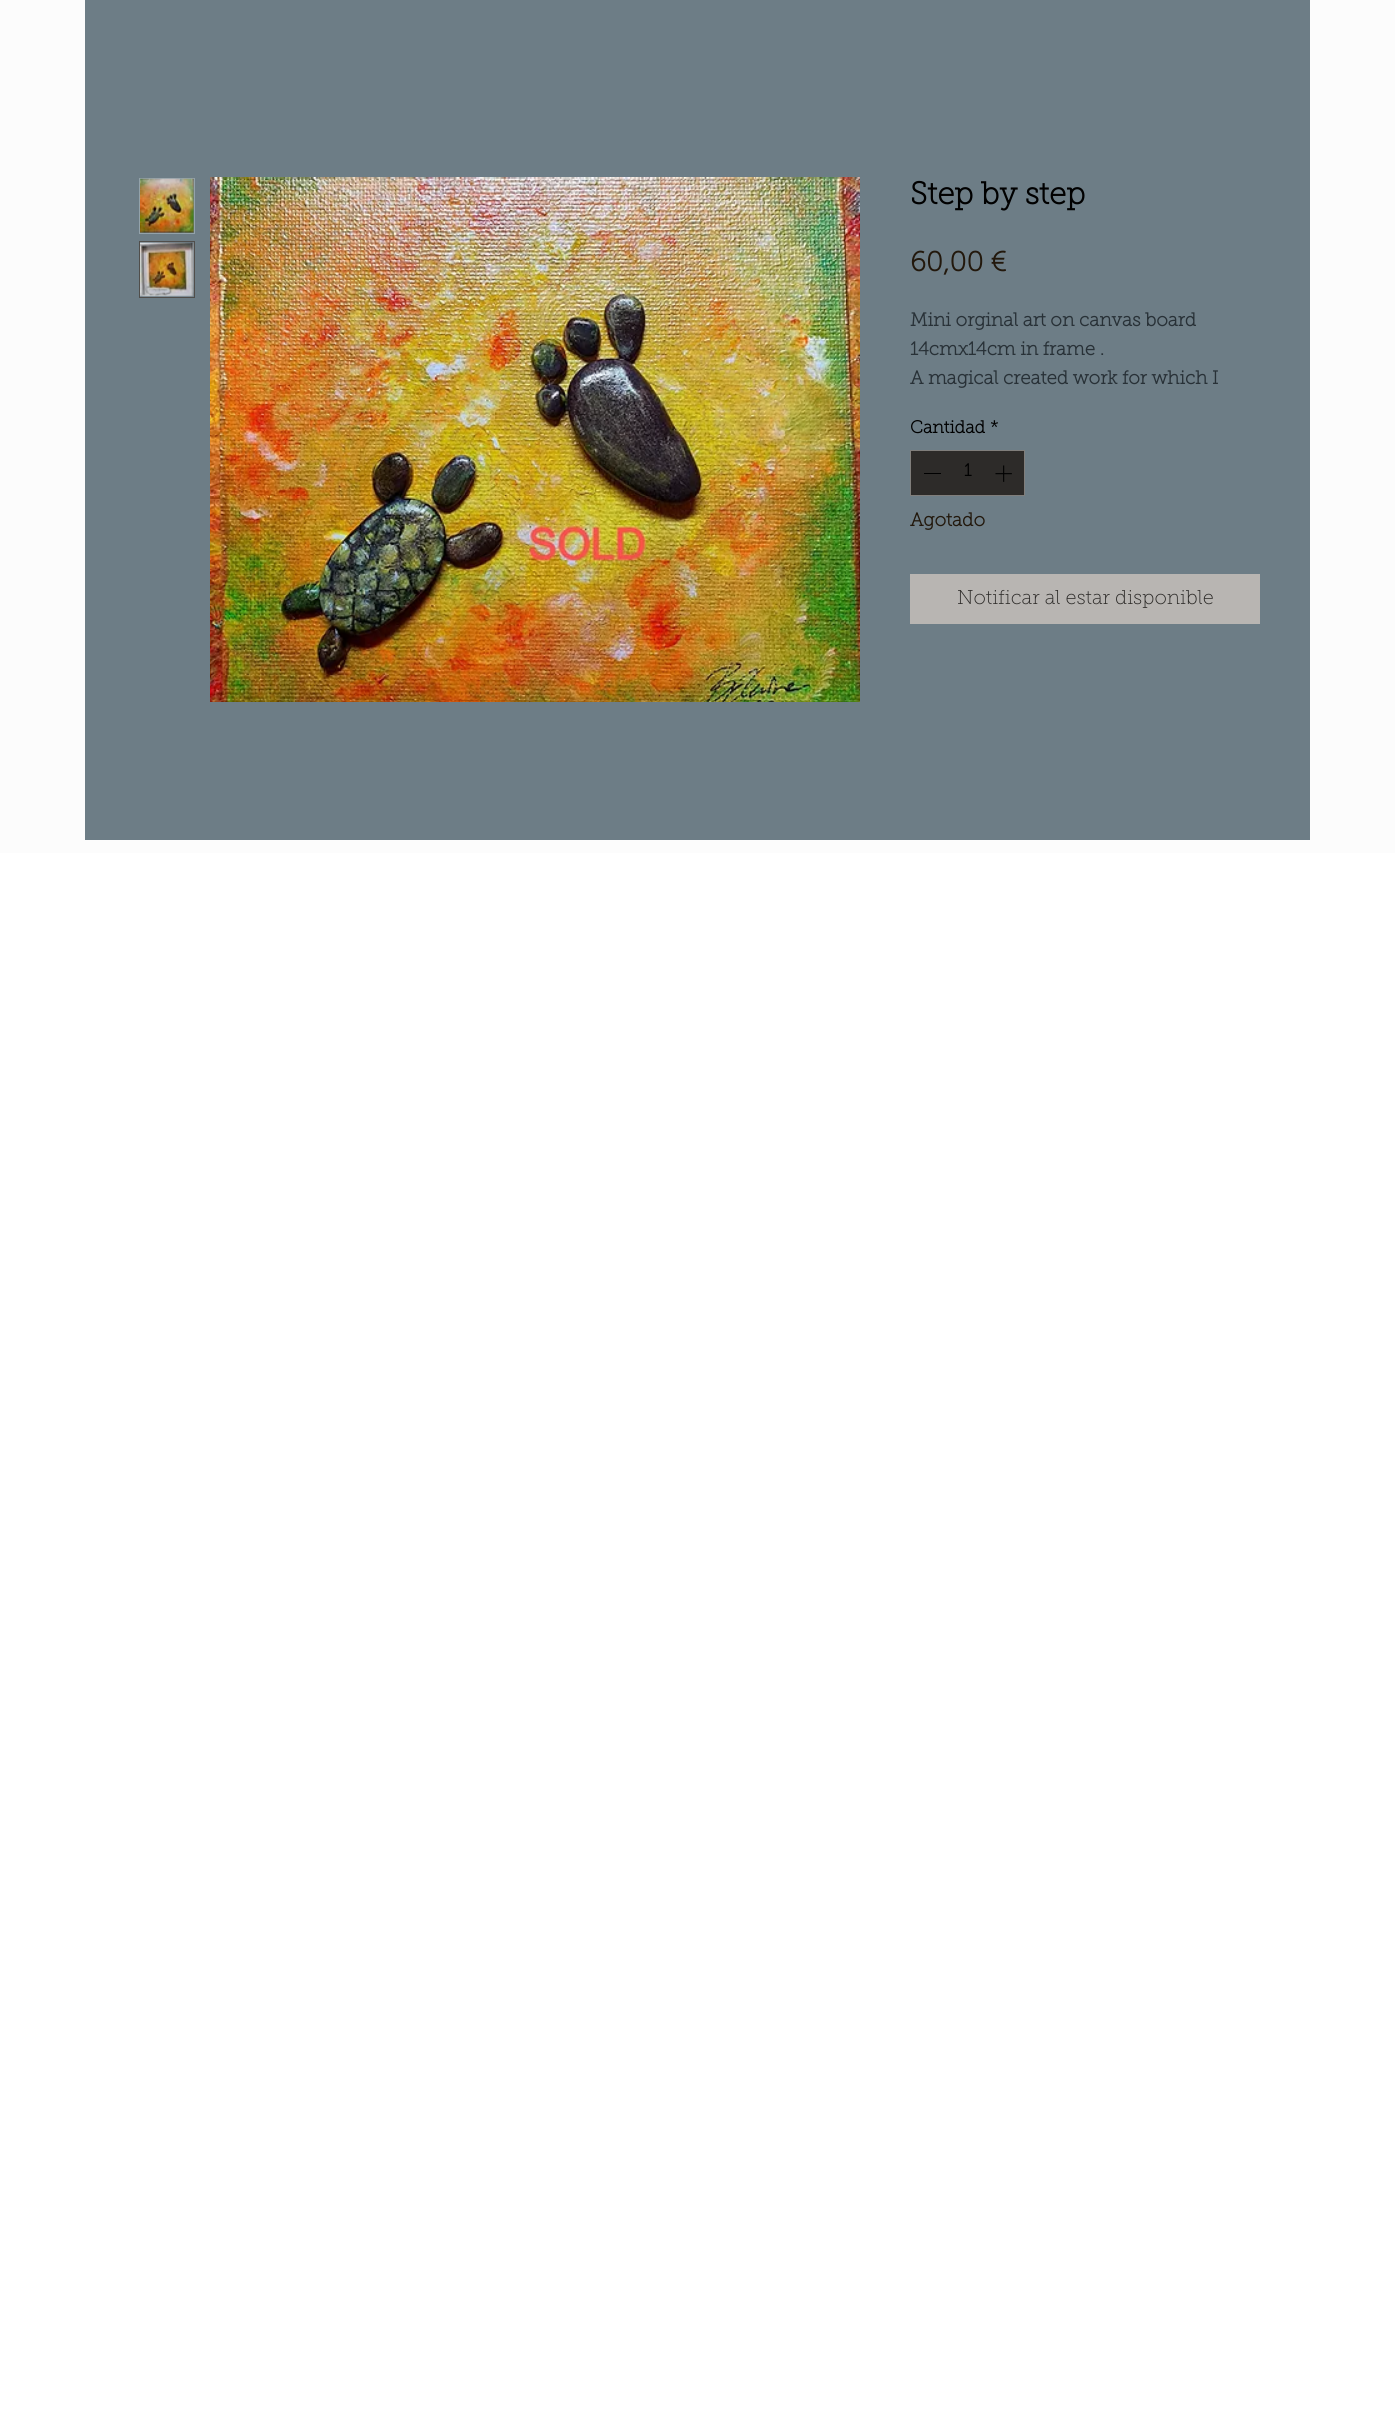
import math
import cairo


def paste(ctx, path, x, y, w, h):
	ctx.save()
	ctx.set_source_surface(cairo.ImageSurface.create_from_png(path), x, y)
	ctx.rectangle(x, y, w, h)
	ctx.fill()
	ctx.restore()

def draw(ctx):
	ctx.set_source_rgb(1, 1, 1)
	ctx.paint()
	ctx.set_source_rgb(0.988, 0.988, 0.988)
	ctx.rectangle(0, 0, 1395, 853)
	ctx.fill()
	ctx.set_source_rgb(0.427, 0.49, 0.525)
	ctx.rectangle(85, 0, 1225, 840)
	ctx.fill()
	ctx.rectangle(139.5, 178.5, 55, 55)
	ctx.set_source_rgb(0.576, 0.635, 0.667)
	ctx.set_line_width(1)
	ctx.stroke()
	paste(ctx, 'media/1.png', 140, 178, 54, 55)
	ctx.rectangle(139.5, 241.5, 55, 56)
	ctx.set_source_rgb(0.314, 0.306, 0.294)
	ctx.stroke()
	paste(ctx, 'media/2.png', 140, 242, 54, 55)
	paste(ctx, 'media/3.png', 210, 177, 650, 525)
	ctx.select_font_face('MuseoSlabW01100', cairo.FONT_SLANT_NORMAL, cairo.FONT_WEIGHT_BOLD)
	ctx.set_font_size(31.25)
	ctx.set_source_rgb(0, 0, 0)
	ctx.move_to(910, 204)
	ctx.show_text('Step by step')
	ctx.set_font_size(27.5)
	ctx.set_source_rgb(0.133, 0.094, 0.047)
	ctx.move_to(910, 271)
	ctx.show_text('60,00 €')
	ctx.set_font_size(18.75)
	ctx.set_source_rgb(0.157, 0.192, 0.216)
	for x, y, s in [
		(910, 326, 'Mini orginal art on canvas board'),
		(910, 355, '14cmx14cm in frame .'),
		(910, 384, 'A magical created work for which I'),
	]:
		ctx.move_to(x, y)
		ctx.show_text(s)
	ctx.set_font_size(17.5)
	ctx.set_source_rgb(0, 0, 0)
	ctx.move_to(910, 433)
	ctx.show_text('Cantidad')
	ctx.move_to(990, 433)
	ctx.show_text('*')
	ctx.set_source_rgb(0.176, 0.169, 0.161)
	ctx.rectangle(910.5, 450.5, 114, 45)
	ctx.fill_preserve()
	ctx.set_source_rgb(0.502, 0.494, 0.482)
	ctx.stroke()
	ctx.set_source_rgb(0, 0, 0)
	ctx.rectangle(924, 473, 17, 1)
	ctx.fill()
	ctx.move_to(964, 476)
	ctx.show_text('1')
	paste(ctx, 'media/4.png', 995, 465, 17, 17)
	ctx.set_font_size(18.75)
	ctx.set_source_rgb(0.133, 0.094, 0.047)
	ctx.move_to(910, 526)
	ctx.show_text('Agotado')
	ctx.set_source_rgb(0.722, 0.71, 0.698)
	ctx.rectangle(910, 574, 350, 50)
	ctx.fill()
	ctx.select_font_face('MuseoSlabW01100 Thin')
	ctx.set_font_size(20)
	ctx.set_source_rgb(0.176, 0.169, 0.161)
	ctx.move_to(957, 604)
	ctx.show_text('Notificar al estar disponible')


surface = cairo.ImageSurface(cairo.FORMAT_RGB24, 1395, 2411)
ctx = cairo.Context(surface)
options = cairo.FontOptions()
options.set_hint_metrics(cairo.HINT_METRICS_OFF)
options.set_hint_style(cairo.HINT_STYLE_NONE)
ctx.set_font_options(options)
ctx.set_miter_limit(4)
draw(ctx)
surface.write_to_png('image.png')
